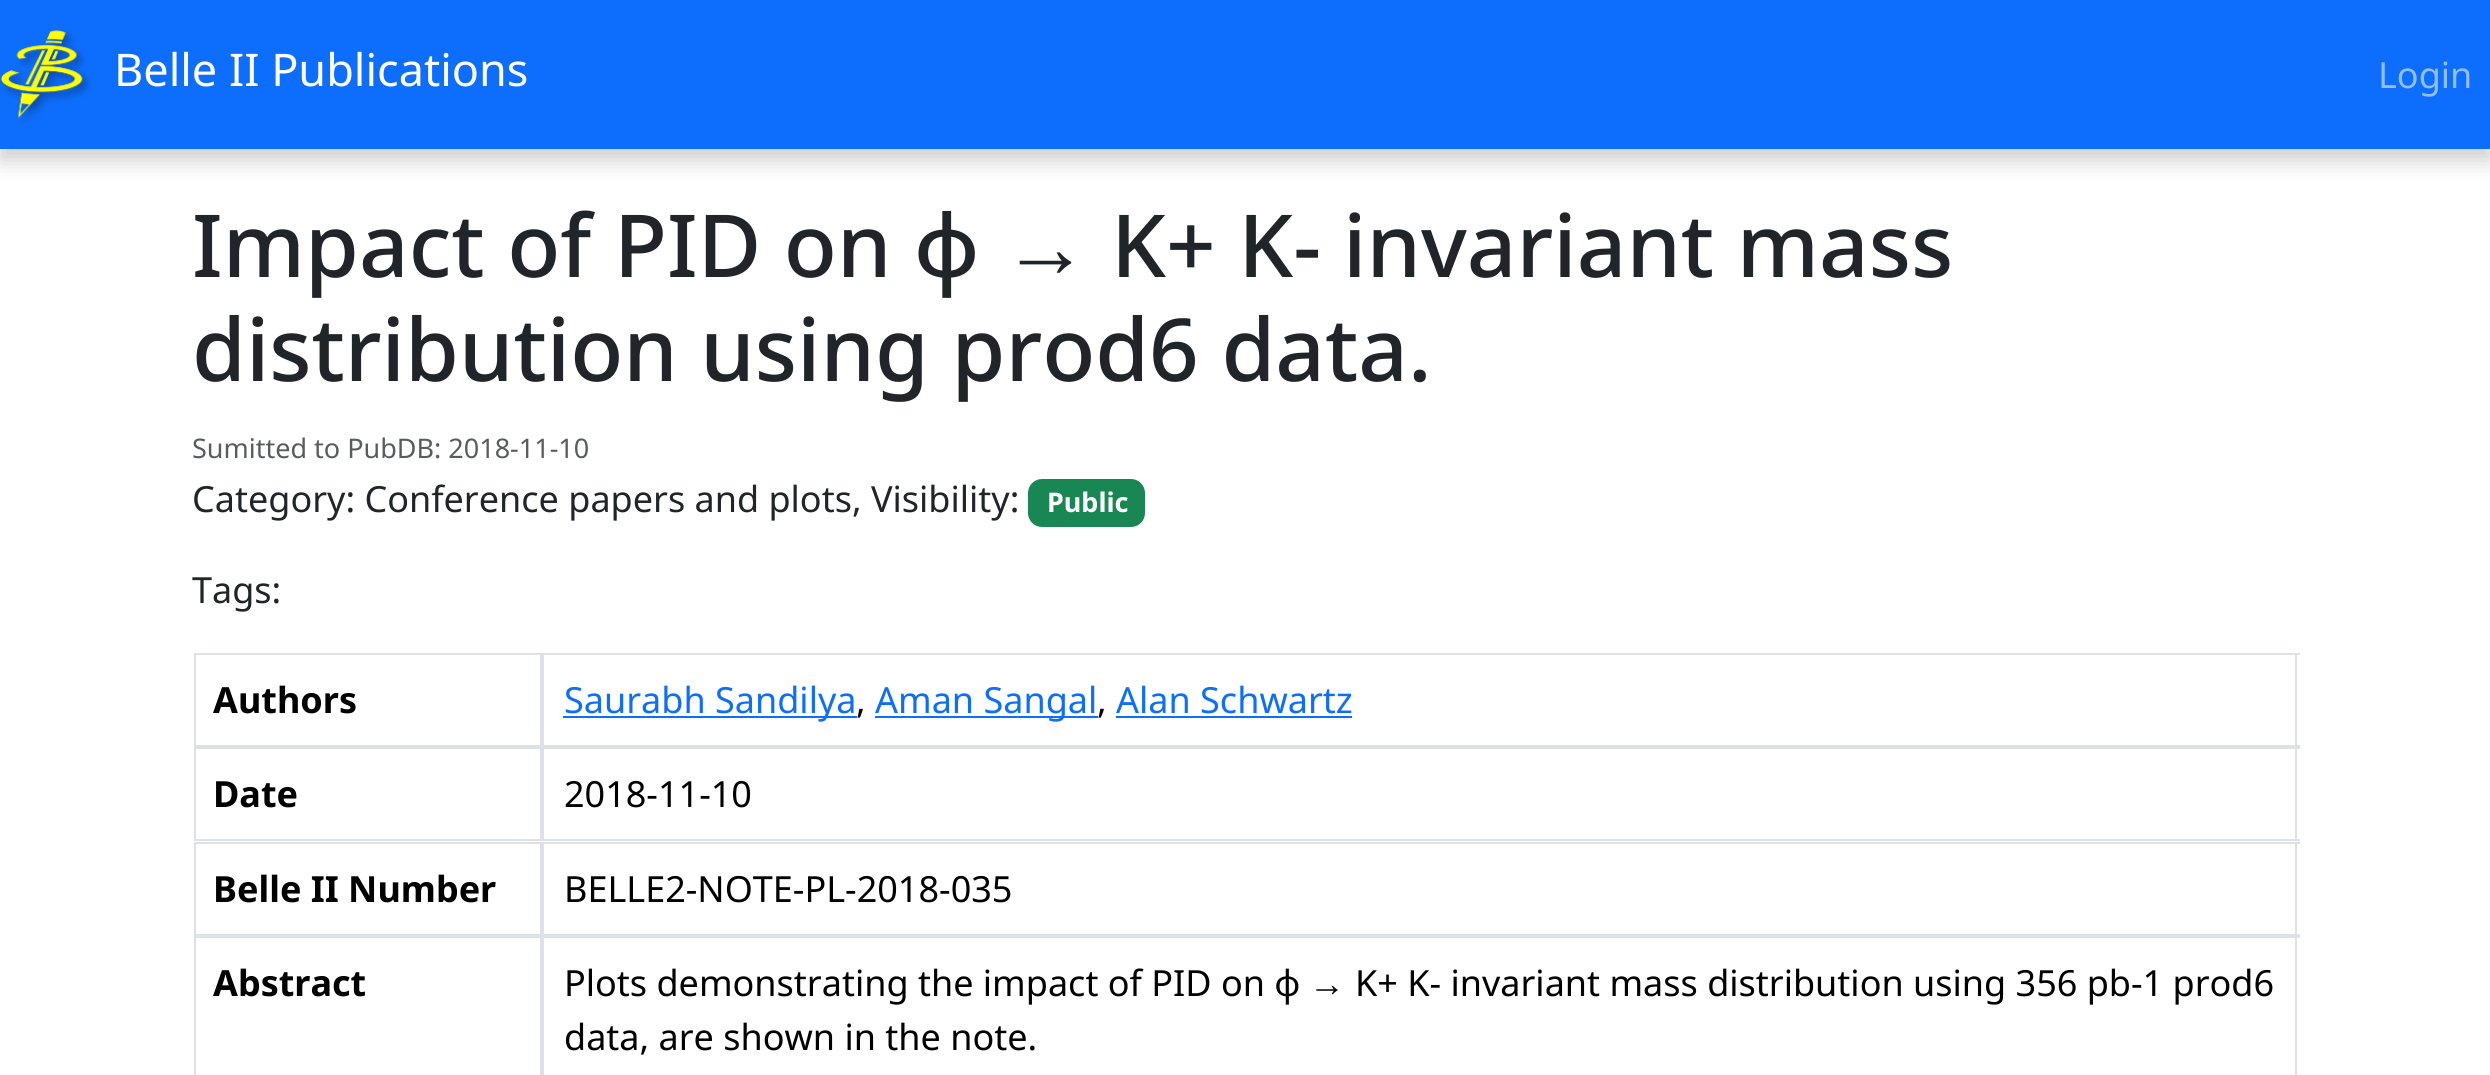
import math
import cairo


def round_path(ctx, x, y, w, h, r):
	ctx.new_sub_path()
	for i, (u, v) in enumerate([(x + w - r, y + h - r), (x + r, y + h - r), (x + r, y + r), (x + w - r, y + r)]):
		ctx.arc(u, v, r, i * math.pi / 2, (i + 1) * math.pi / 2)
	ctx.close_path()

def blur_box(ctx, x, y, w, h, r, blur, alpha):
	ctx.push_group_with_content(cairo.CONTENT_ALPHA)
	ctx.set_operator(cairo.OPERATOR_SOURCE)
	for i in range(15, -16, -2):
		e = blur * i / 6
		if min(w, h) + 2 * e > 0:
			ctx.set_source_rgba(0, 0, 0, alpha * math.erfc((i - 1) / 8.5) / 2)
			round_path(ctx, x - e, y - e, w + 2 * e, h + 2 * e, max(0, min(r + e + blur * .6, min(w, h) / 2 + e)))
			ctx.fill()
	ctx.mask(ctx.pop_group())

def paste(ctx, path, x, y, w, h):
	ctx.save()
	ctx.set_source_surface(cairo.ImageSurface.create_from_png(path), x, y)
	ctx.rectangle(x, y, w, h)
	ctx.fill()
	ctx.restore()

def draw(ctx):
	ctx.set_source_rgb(1, 1, 1)
	ctx.paint()
	ctx.set_source_rgb(0.004, 0.004, 0.004)
	blur_box(ctx, 0, 11, 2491, 149, 0, 11, 0.2)
	ctx.set_source_rgb(0.051, 0.431, 0.992)
	ctx.rectangle(0, 0, 2490, 149)
	ctx.fill()
	paste(ctx, 'media/1.png', 0, 29, 92, 95)
	ctx.select_font_face('Noto Sans')
	ctx.set_font_size(45)
	ctx.set_source_rgb(1, 1, 1)
	ctx.move_to(114, 86)
	ctx.show_text('Belle II Publications')
	ctx.set_font_size(36)
	ctx.set_source_rgb(0.573, 0.745, 0.996)
	ctx.move_to(2378, 88)
	ctx.show_text('Login')
	ctx.select_font_face('Noto Sans Medium')
	ctx.set_font_size(86.9)
	ctx.set_source_rgb(0.129, 0.145, 0.161)
	ctx.move_to(192, 277)
	ctx.show_text('Impact of PID on φ')
	ctx.select_font_face('Liberation Sans')
	ctx.move_to(1002, 277)
	ctx.show_text('→')
	ctx.select_font_face('Noto Sans Medium')
	for x, y, s in [
		(1111, 277, 'K+ K-'),
		(1343, 277, 'invariant mass'),
		(192, 381, 'distribution using prod6 data.'),
	]:
		ctx.move_to(x, y)
		ctx.show_text(s)
	ctx.select_font_face('Noto Sans')
	ctx.set_font_size(27)
	ctx.set_source_rgb(0.349, 0.361, 0.373)
	ctx.move_to(192, 458)
	ctx.show_text('Sumitted to PubDB: 2018-11-10')
	ctx.set_font_size(36)
	ctx.set_source_rgb(0.129, 0.145, 0.161)
	ctx.move_to(192, 512)
	ctx.show_text('Category: Conference papers and plots, Visibility:')
	ctx.set_source_rgb(0.098, 0.529, 0.329)
	round_path(ctx, 1028, 479, 117, 48, 14)
	ctx.fill()
	ctx.select_font_face('Noto Sans', cairo.FONT_SLANT_NORMAL, cairo.FONT_WEIGHT_BOLD)
	ctx.set_font_size(27)
	ctx.set_source_rgb(1, 1, 1)
	ctx.move_to(1047, 512)
	ctx.show_text('Public')
	ctx.select_font_face('Noto Sans')
	ctx.set_font_size(36)
	ctx.set_source_rgb(0.129, 0.145, 0.161)
	ctx.move_to(192, 603)
	ctx.show_text('Tags:')
	ctx.set_source_rgb(0.871, 0.886, 0.902)
	ctx.rectangle(194, 653, 2106, 2)
	ctx.rectangle(194, 745, 2106, 4)
	ctx.rectangle(540, 655, 4, 90)
	ctx.rectangle(194, 655, 2, 90)
	ctx.fill()
	ctx.select_font_face('Noto Sans', cairo.FONT_SLANT_NORMAL, cairo.FONT_WEIGHT_BOLD)
	ctx.set_source_rgb(0, 0, 0)
	ctx.move_to(213, 713)
	ctx.show_text('Authors')
	ctx.set_source_rgb(0.871, 0.886, 0.902)
	ctx.rectangle(2295, 655, 2, 90)
	ctx.fill()
	ctx.set_source_rgb(0.051, 0.431, 0.992)
	ctx.rectangle(563, 716, 294, 2)
	ctx.fill()
	ctx.select_font_face('Noto Sans')
	ctx.move_to(564, 713)
	ctx.show_text('Saurabh Sandilya')
	ctx.set_source_rgb(0, 0, 0)
	ctx.move_to(856, 713)
	ctx.show_text(',')
	ctx.set_source_rgb(0.051, 0.431, 0.992)
	ctx.rectangle(875, 716, 223, 2)
	ctx.fill()
	ctx.move_to(875, 713)
	ctx.show_text('Aman Sangal')
	ctx.set_source_rgb(0, 0, 0)
	ctx.move_to(1097, 713)
	ctx.show_text(',')
	ctx.set_source_rgb(0.051, 0.431, 0.992)
	ctx.move_to(1116, 713)
	ctx.show_text('Alan Schwartz')
	ctx.rectangle(1116, 716, 236, 2)
	ctx.fill()
	ctx.set_source_rgb(0.871, 0.886, 0.902)
	ctx.rectangle(194, 839, 2106, 2)
	ctx.rectangle(540, 749, 4, 90)
	ctx.rectangle(194, 749, 2, 90)
	ctx.fill()
	ctx.select_font_face('Noto Sans', cairo.FONT_SLANT_NORMAL, cairo.FONT_WEIGHT_BOLD)
	ctx.set_source_rgb(0, 0, 0)
	ctx.move_to(213, 807)
	ctx.show_text('Date')
	ctx.set_source_rgb(0.871, 0.886, 0.902)
	ctx.rectangle(2295, 749, 2, 90)
	ctx.fill()
	ctx.select_font_face('Noto Sans')
	ctx.set_source_rgb(0, 0, 0)
	ctx.move_to(564, 807)
	ctx.show_text('2018-11-10')
	ctx.set_source_rgb(0.871, 0.886, 0.902)
	ctx.rectangle(194, 842, 2106, 2)
	ctx.rectangle(194, 934, 2106, 4)
	ctx.rectangle(540, 844, 4, 90)
	ctx.rectangle(194, 844, 2, 90)
	ctx.fill()
	ctx.select_font_face('Noto Sans', cairo.FONT_SLANT_NORMAL, cairo.FONT_WEIGHT_BOLD)
	ctx.set_source_rgb(0, 0, 0)
	ctx.move_to(213, 902)
	ctx.show_text('Belle II Number')
	ctx.set_source_rgb(0.871, 0.886, 0.902)
	ctx.rectangle(2295, 844, 2, 90)
	ctx.fill()
	ctx.select_font_face('Noto Sans')
	ctx.set_source_rgb(0, 0, 0)
	ctx.move_to(564, 902)
	ctx.show_text('BELLE2-NOTE-PL-2018-035')
	ctx.set_source_rgb(0.871, 0.886, 0.902)
	ctx.rectangle(540, 938, 4, 137)
	ctx.fill()
	ctx.rectangle(194, 938, 2, 137)
	ctx.fill()
	ctx.select_font_face('Noto Sans', cairo.FONT_SLANT_NORMAL, cairo.FONT_WEIGHT_BOLD)
	ctx.set_source_rgb(0, 0, 0)
	ctx.move_to(213, 996)
	ctx.show_text('Abstract')
	ctx.set_source_rgb(0.871, 0.886, 0.902)
	ctx.rectangle(2295, 938, 2, 137)
	ctx.fill()
	ctx.select_font_face('Noto Sans')
	ctx.set_source_rgb(0, 0, 0)
	ctx.move_to(564, 996)
	ctx.show_text('Plots demonstrating the impact of PID on φ')
	ctx.select_font_face('Liberation Sans')
	ctx.move_to(1309, 996)
	ctx.show_text('→')
	ctx.select_font_face('Noto Sans')
	ctx.move_to(1355, 996)
	ctx.show_text('K+ K- invariant mass distribution using 356 pb-1 prod6')
	ctx.move_to(564, 1050)
	ctx.show_text('data, are shown in the note.')


surface = cairo.ImageSurface(cairo.FORMAT_RGB24, 2490, 1075)
ctx = cairo.Context(surface)
options = cairo.FontOptions()
options.set_hint_metrics(cairo.HINT_METRICS_OFF)
options.set_hint_style(cairo.HINT_STYLE_NONE)
ctx.set_font_options(options)
ctx.set_miter_limit(4)
draw(ctx)
surface.write_to_png('image.png')
